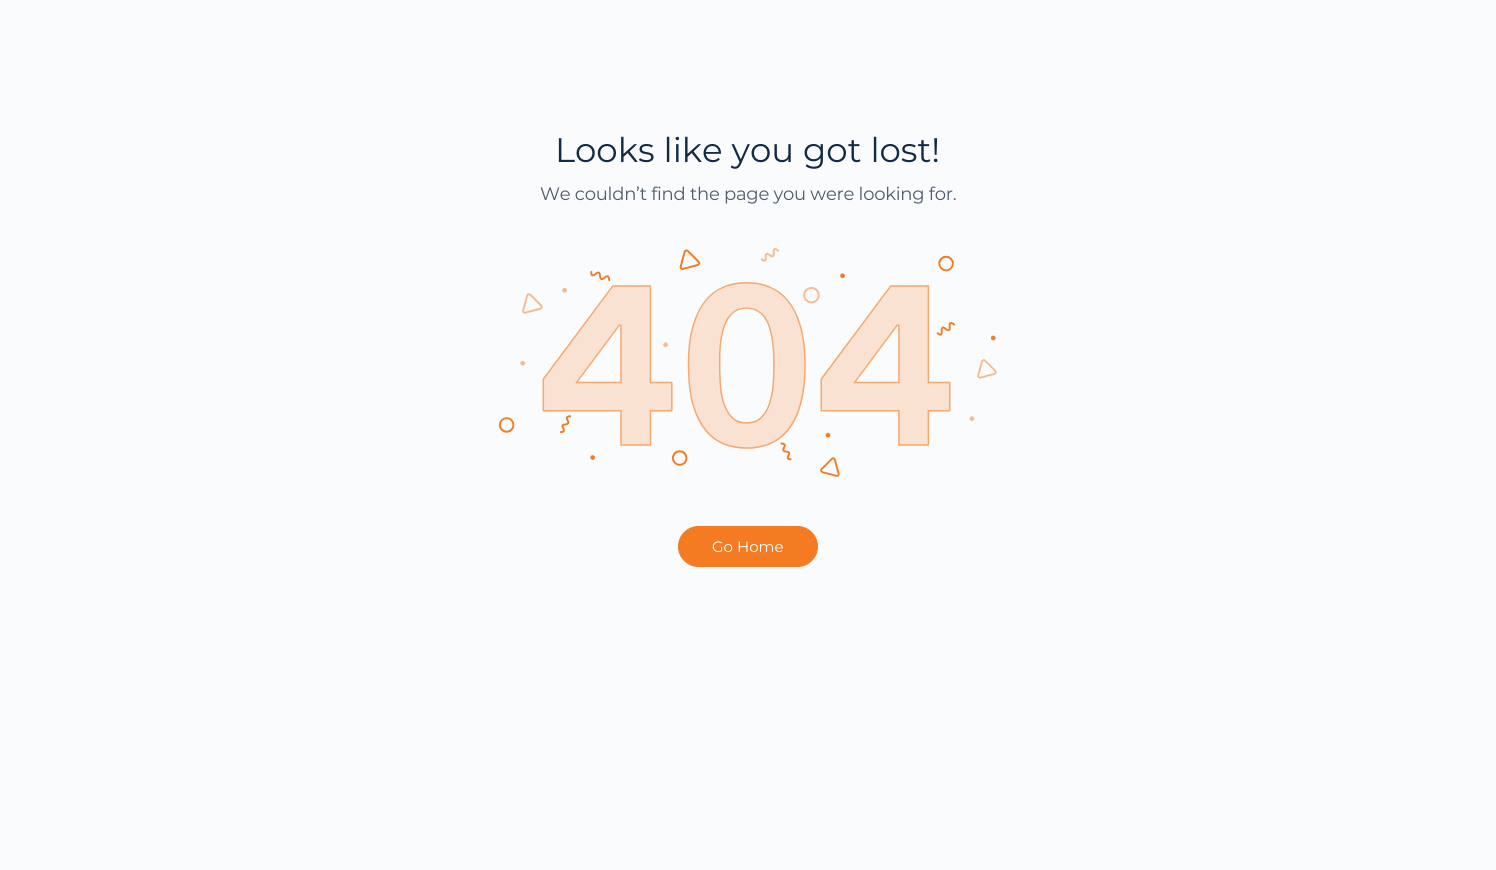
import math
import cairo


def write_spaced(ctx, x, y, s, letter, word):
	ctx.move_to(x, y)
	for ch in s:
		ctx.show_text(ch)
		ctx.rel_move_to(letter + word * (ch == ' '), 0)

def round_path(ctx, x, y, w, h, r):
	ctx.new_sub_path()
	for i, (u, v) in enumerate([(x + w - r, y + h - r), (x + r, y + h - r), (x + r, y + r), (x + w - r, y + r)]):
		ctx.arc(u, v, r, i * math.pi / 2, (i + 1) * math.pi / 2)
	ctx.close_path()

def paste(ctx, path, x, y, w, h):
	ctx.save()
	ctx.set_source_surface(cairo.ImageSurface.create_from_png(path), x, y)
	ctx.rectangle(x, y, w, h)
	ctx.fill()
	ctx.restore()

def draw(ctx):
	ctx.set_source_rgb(0.98, 0.984, 0.992)
	ctx.paint()
	ctx.select_font_face('Montserrat Thin')
	ctx.set_font_size(34)
	ctx.set_source_rgb(0.071, 0.169, 0.275)
	ctx.move_to(555, 162)
	ctx.show_text('Looks like you got lost!')
	ctx.set_font_size(18)
	ctx.set_source_rgb(0.302, 0.361, 0.427)
	write_spaced(ctx, 540, 200, 'We couldn’t find the page you were looking for.', -0.25, 0)
	paste(ctx, 'media/1.png', 498, 248, 499, 229)
	ctx.set_source_rgb(0.957, 0.482, 0.129)
	round_path(ctx, 678.5, 526.5, 139, 40, 20)
	ctx.fill_preserve()
	ctx.set_line_width(1)
	ctx.stroke()
	ctx.set_font_size(15)
	ctx.set_source_rgb(1, 1, 1)
	ctx.move_to(712, 552)
	ctx.show_text('Go Home')


surface = cairo.ImageSurface(cairo.FORMAT_RGB24, 1496, 870)
ctx = cairo.Context(surface)
options = cairo.FontOptions()
options.set_hint_metrics(cairo.HINT_METRICS_OFF)
options.set_hint_style(cairo.HINT_STYLE_NONE)
ctx.set_font_options(options)
ctx.set_miter_limit(4)
draw(ctx)
surface.write_to_png('image.png')
